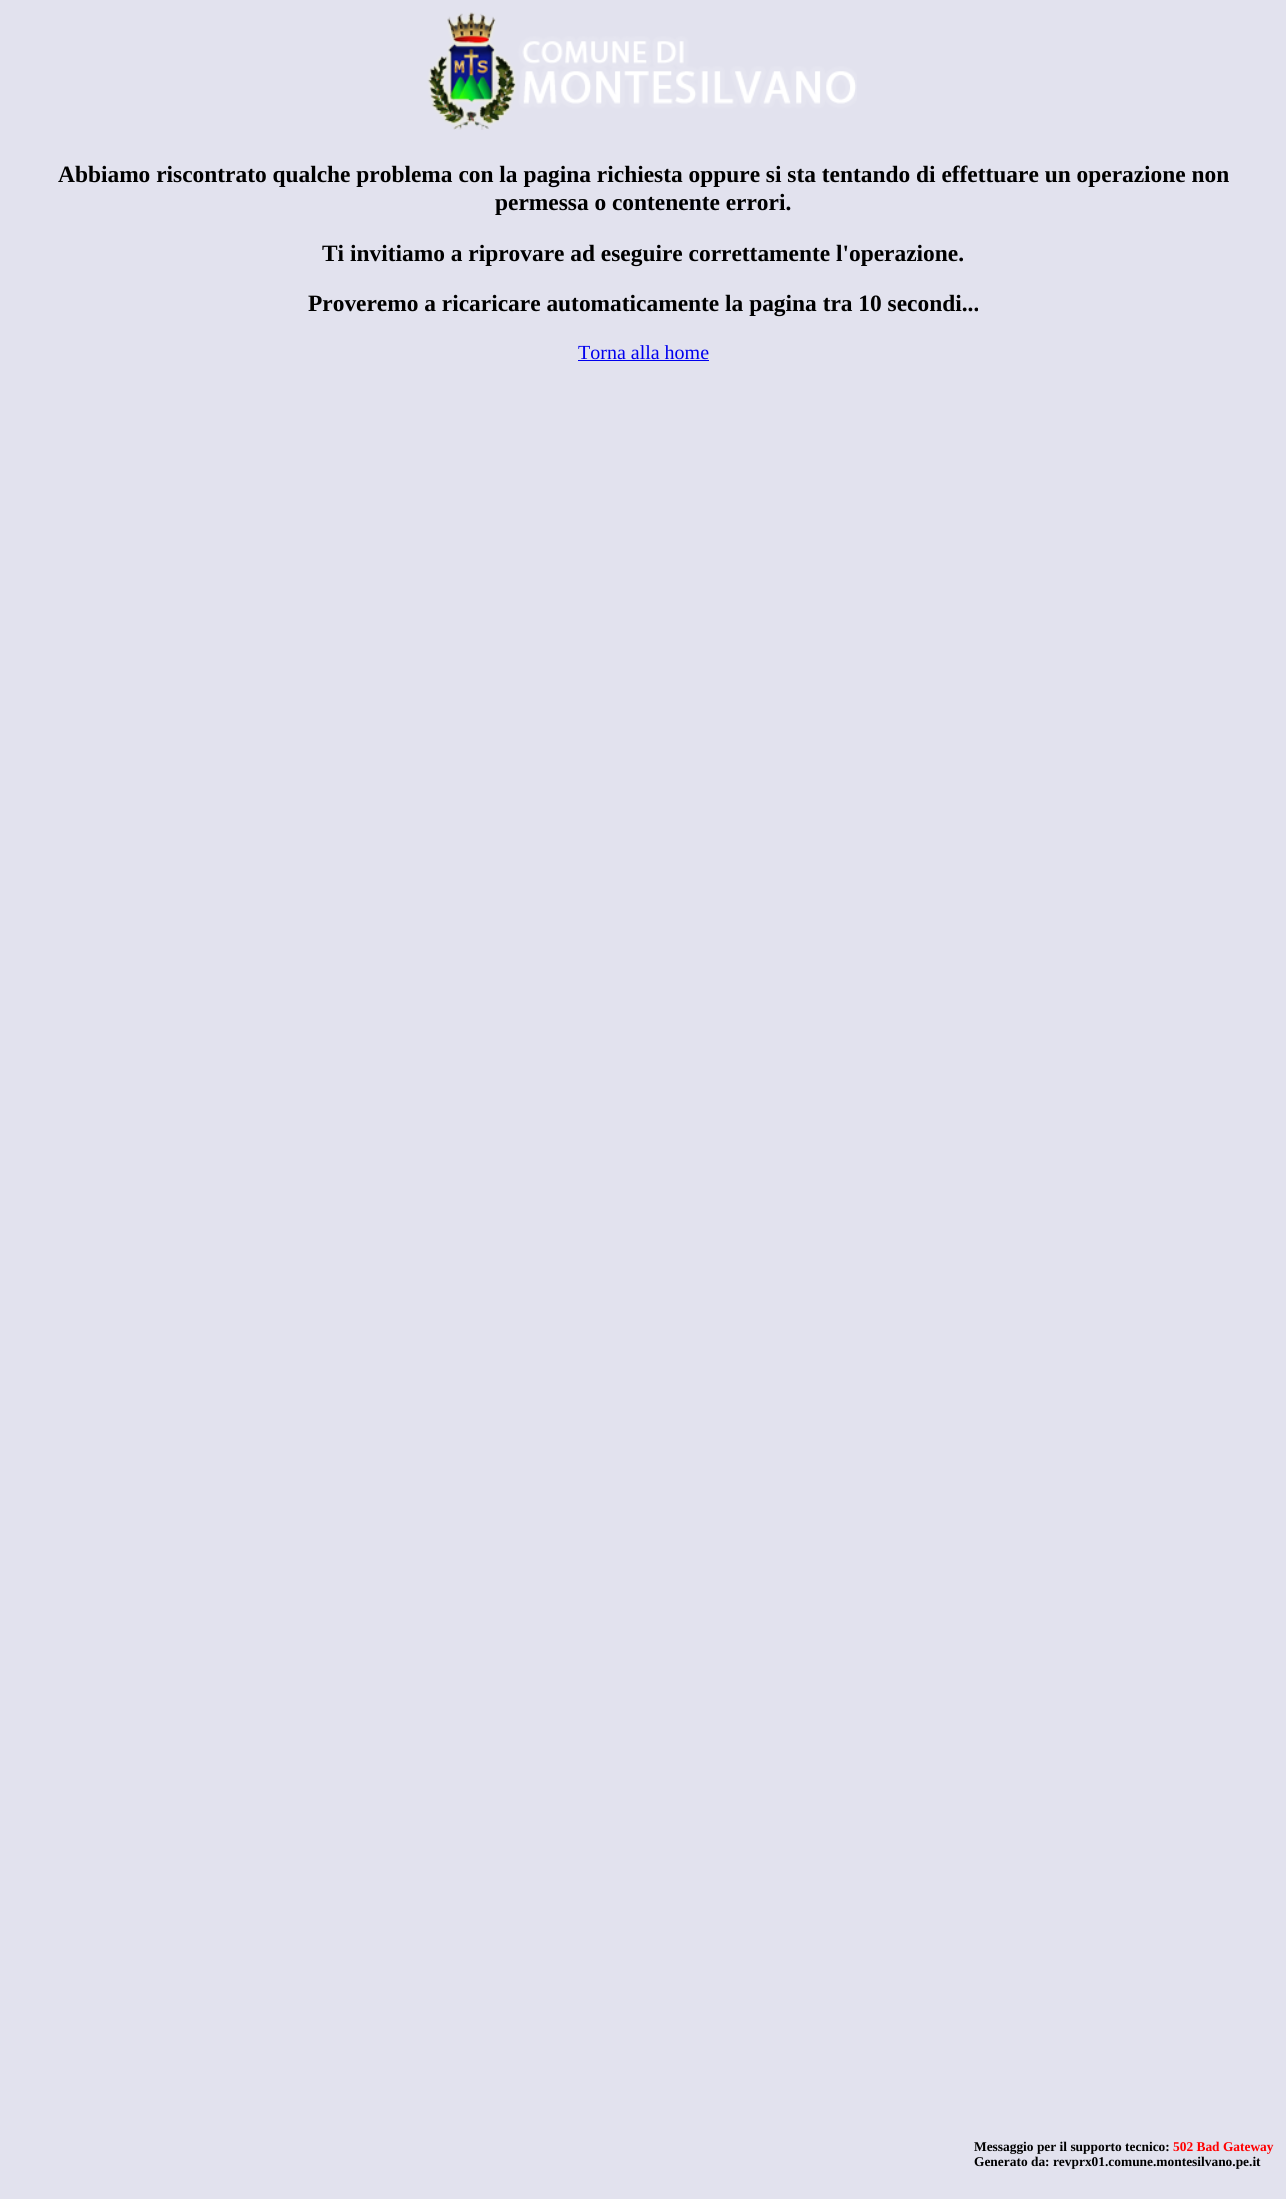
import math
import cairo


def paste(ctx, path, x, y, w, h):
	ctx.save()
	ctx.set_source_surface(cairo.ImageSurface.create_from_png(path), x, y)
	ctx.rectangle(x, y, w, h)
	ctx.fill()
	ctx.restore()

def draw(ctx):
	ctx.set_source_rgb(0.886, 0.886, 0.933)
	ctx.paint()
	paste(ctx, 'media/1.png', 427, 12, 430, 118)
	ctx.select_font_face('Liberation Serif', cairo.FONT_SLANT_NORMAL, cairo.FONT_WEIGHT_BOLD)
	ctx.set_font_size(23.4)
	ctx.set_source_rgb(0, 0, 0)
	for x, y, s in [
		(58, 182, 'Abbiamo riscontrato qualche problema con la pagina richiesta oppure si sta tentando di effettuare un operazione non'),
		(495, 210, 'permessa o contenente errori.'),
		(322, 261, 'Ti invitiamo a riprovare ad eseguire correttamente l\'operazione.'),
		(308, 311, 'Proveremo a ricaricare automaticamente la pagina tra 10 secondi...'),
	]:
		ctx.move_to(x, y)
		ctx.show_text(s)
	ctx.select_font_face('Liberation Serif')
	ctx.set_font_size(20)
	ctx.set_source_rgb(0, 0, 0.933)
	ctx.move_to(578, 359)
	ctx.show_text('Torna alla home')
	ctx.rectangle(578, 360, 131, 1)
	ctx.fill()
	ctx.select_font_face('Liberation Serif', cairo.FONT_SLANT_NORMAL, cairo.FONT_WEIGHT_BOLD)
	ctx.set_font_size(13.4)
	ctx.set_source_rgb(0, 0, 0)
	ctx.move_to(974, 2151)
	ctx.show_text('Messaggio per il supporto tecnico:')
	ctx.set_source_rgb(1, 0, 0)
	ctx.move_to(1173, 2151)
	ctx.show_text('502 Bad Gateway')
	ctx.set_source_rgb(0, 0, 0)
	ctx.move_to(974, 2166)
	ctx.show_text('Generato da: revprx01.comune.montesilvano.pe.it')


surface = cairo.ImageSurface(cairo.FORMAT_RGB24, 1286, 2199)
ctx = cairo.Context(surface)
options = cairo.FontOptions()
options.set_hint_metrics(cairo.HINT_METRICS_OFF)
options.set_hint_style(cairo.HINT_STYLE_NONE)
ctx.set_font_options(options)
ctx.set_miter_limit(4)
draw(ctx)
surface.write_to_png('image.png')
